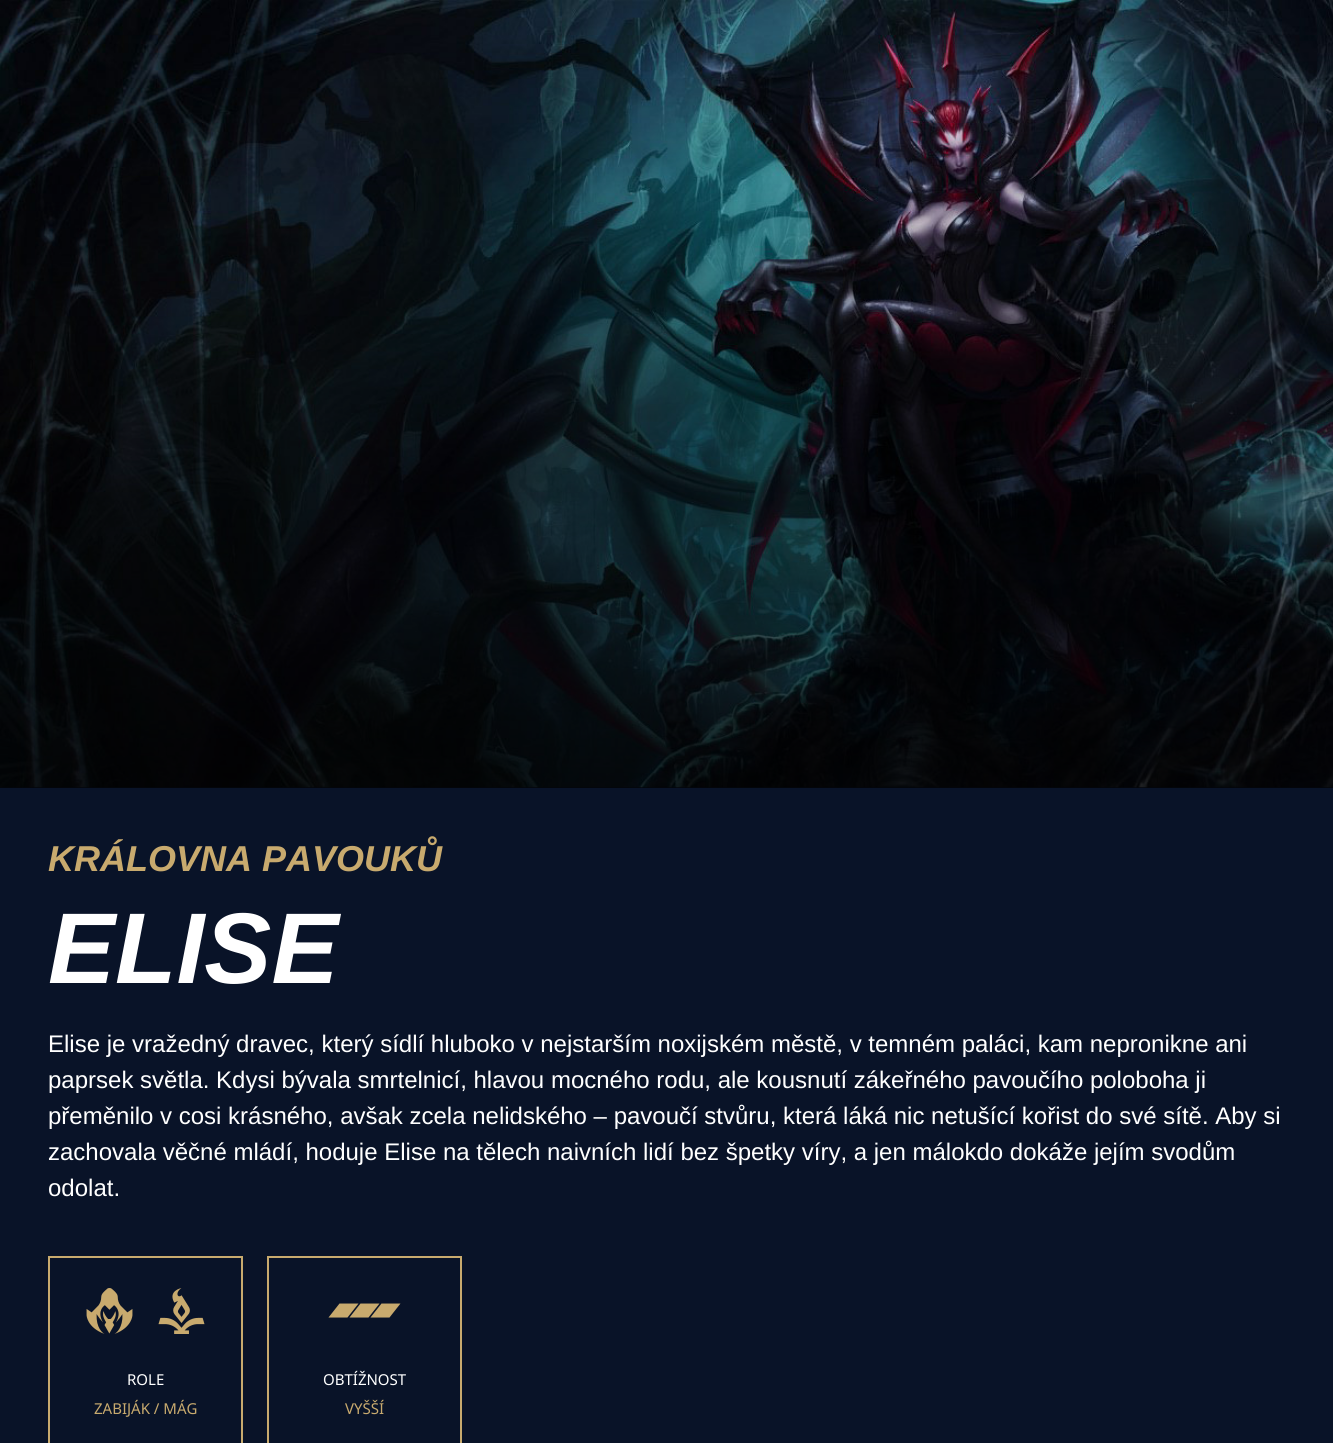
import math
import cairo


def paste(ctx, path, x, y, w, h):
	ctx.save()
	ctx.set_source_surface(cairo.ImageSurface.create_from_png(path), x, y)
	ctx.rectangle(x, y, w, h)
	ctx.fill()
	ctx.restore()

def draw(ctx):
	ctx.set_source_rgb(0.039, 0.078, 0.157)
	ctx.paint()
	paste(ctx, 'media/1.png', 0, 0, 1333, 788)
	gradient = cairo.LinearGradient(667, 788, 667, 0)
	gradient.add_color_stop_rgba(0, 0, 0, 0, 0.7)
	gradient.add_color_stop_rgba(0.93, 0, 0, 0, 0)
	ctx.set_source(gradient)
	ctx.rectangle(0, 78, 1333, 710)
	ctx.fill()
	ctx.select_font_face('Liberation Sans', cairo.FONT_SLANT_ITALIC, cairo.FONT_WEIGHT_BOLD)
	ctx.set_font_size(36)
	ctx.set_source_rgb(0.784, 0.667, 0.431)
	ctx.move_to(48, 871)
	ctx.show_text('KRÁLOVNA PAVOUKŮ')
	ctx.set_font_size(100.5)
	ctx.set_source_rgb(1, 1, 1)
	ctx.move_to(48, 983)
	ctx.show_text('ELISE')
	ctx.select_font_face('Liberation Sans')
	ctx.set_font_size(24)
	for x, y, s in [
		(48, 1052, 'Elise je vražedný dravec, který sídlí hluboko v nejstarším noxijském městě, v temném paláci, kam nepronikne ani'),
		(48, 1088, 'paprsek světla. Kdysi bývala smrtelnicí, hlavou mocného rodu, ale kousnutí zákeřného pavoučího poloboha ji'),
		(48, 1124, 'přeměnilo v cosi krásného, avšak zcela nelidského – pavoučí stvůru, která láká nic netušící kořist do své sítě. Aby si'),
		(48, 1160, 'zachovala věčné mládí, hoduje Elise na tělech naivních lidí bez špetky víry, a jen málokdo dokáže jejím svodům'),
		(48, 1196, 'odolat.'),
	]:
		ctx.move_to(x, y)
		ctx.show_text(s)
	ctx.rectangle(49, 1257, 193, 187)
	ctx.set_source_rgb(0.784, 0.667, 0.431)
	ctx.stroke()
	paste(ctx, 'media/2.png', 86, 1288, 47, 46)
	paste(ctx, 'media/3.png', 158, 1288, 47, 46)
	ctx.select_font_face('Noto Sans')
	ctx.set_font_size(15)
	ctx.set_source_rgb(1, 1, 1)
	ctx.move_to(127, 1385)
	ctx.show_text('ROLE')
	ctx.set_source_rgb(0.784, 0.667, 0.431)
	ctx.move_to(94, 1414)
	ctx.show_text('ZABIJÁK / MÁG')
	ctx.rectangle(268, 1257, 193, 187)
	ctx.stroke()
	ctx.new_path()
	ctx.move_to(347.5, 1317.5)
	ctx.line_to(328.5, 1317.5)
	ctx.line_to(339.5, 1303.5)
	ctx.line_to(358.5, 1303.5)
	ctx.close_path()
	ctx.fill()
	ctx.new_path()
	ctx.move_to(368.5, 1317.5)
	ctx.line_to(349.5, 1317.5)
	ctx.line_to(360.5, 1303.5)
	ctx.line_to(379.5, 1303.5)
	ctx.close_path()
	ctx.fill()
	ctx.new_path()
	ctx.move_to(389.5, 1317.5)
	ctx.line_to(370.5, 1317.5)
	ctx.line_to(381.5, 1303.5)
	ctx.line_to(400.5, 1303.5)
	ctx.close_path()
	ctx.fill()
	ctx.set_source_rgb(1, 1, 1)
	ctx.move_to(323, 1385)
	ctx.show_text('OBTÍŽNOST')
	ctx.set_source_rgb(0.784, 0.667, 0.431)
	ctx.move_to(345, 1414)
	ctx.show_text('VYŠŠÍ')


surface = cairo.ImageSurface(cairo.FORMAT_RGB24, 1333, 1443)
ctx = cairo.Context(surface)
options = cairo.FontOptions()
options.set_hint_metrics(cairo.HINT_METRICS_OFF)
options.set_hint_style(cairo.HINT_STYLE_NONE)
ctx.set_font_options(options)
ctx.set_miter_limit(4)
draw(ctx)
surface.write_to_png('image.png')
